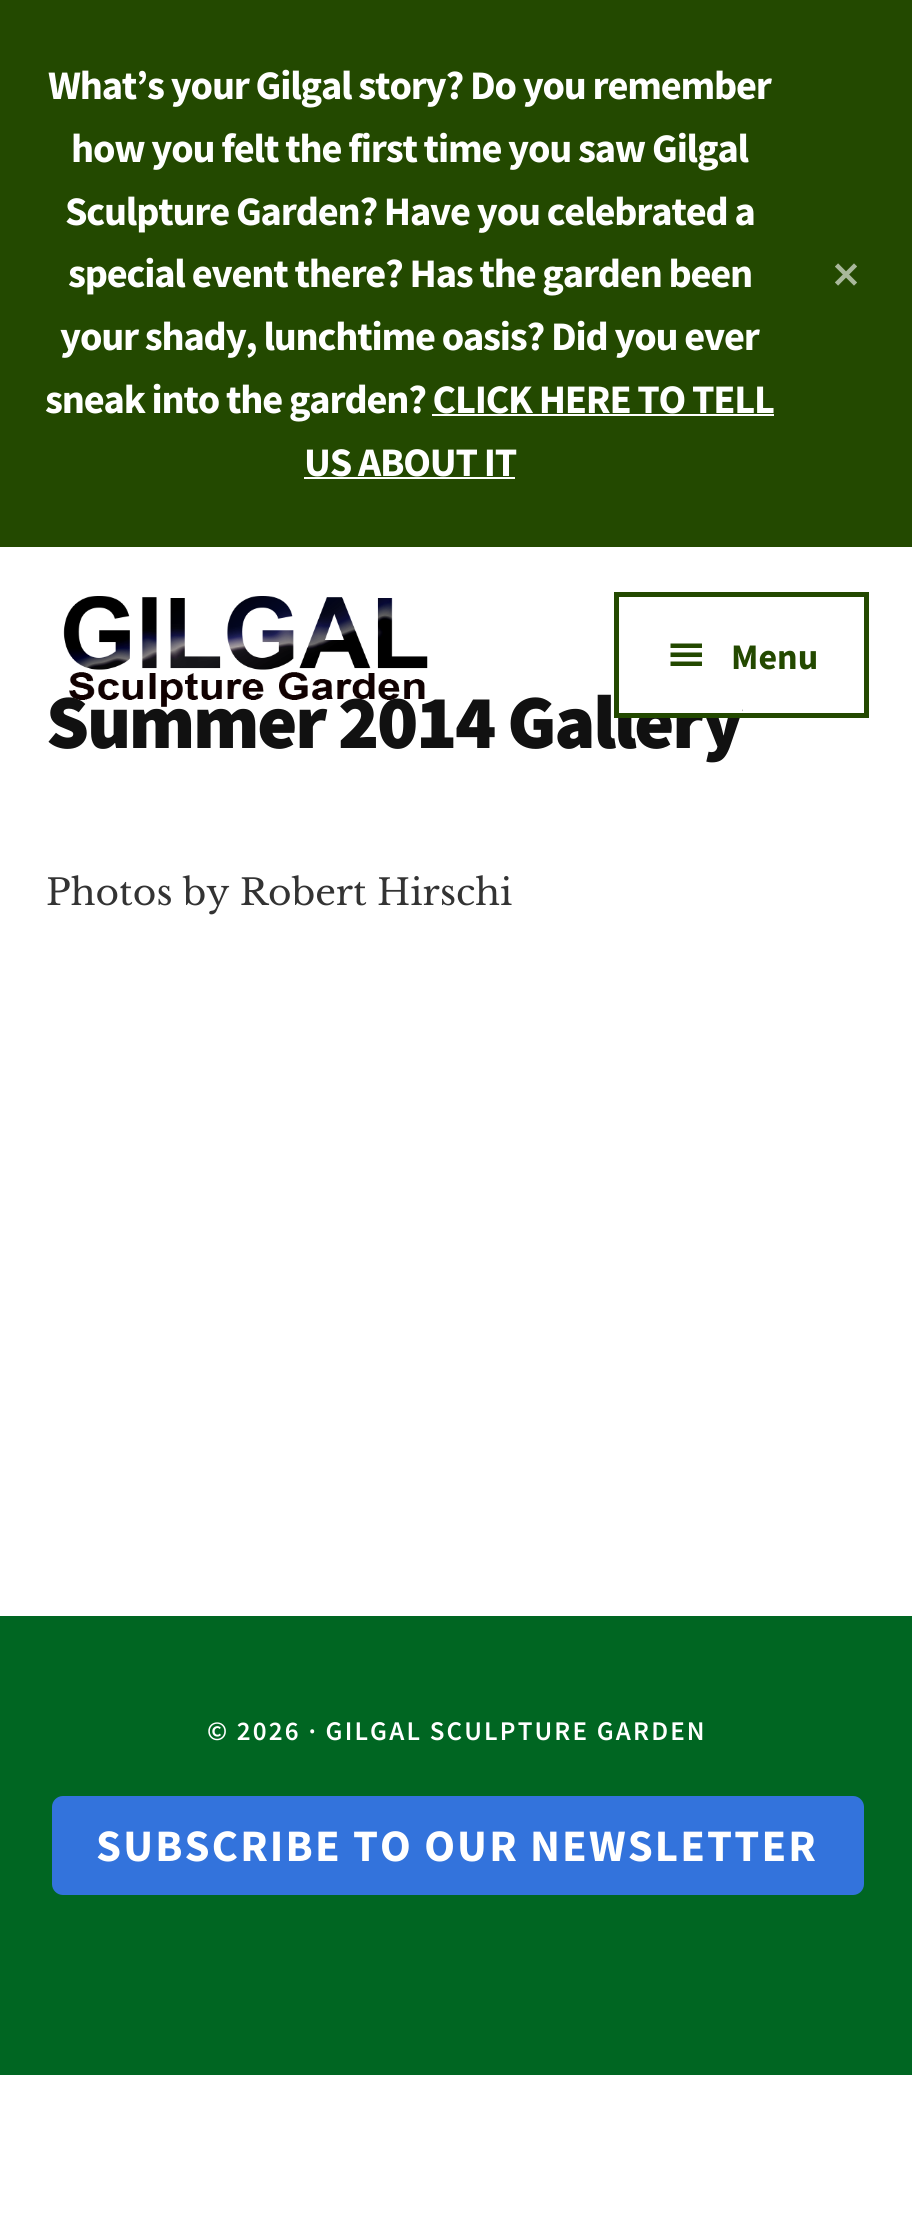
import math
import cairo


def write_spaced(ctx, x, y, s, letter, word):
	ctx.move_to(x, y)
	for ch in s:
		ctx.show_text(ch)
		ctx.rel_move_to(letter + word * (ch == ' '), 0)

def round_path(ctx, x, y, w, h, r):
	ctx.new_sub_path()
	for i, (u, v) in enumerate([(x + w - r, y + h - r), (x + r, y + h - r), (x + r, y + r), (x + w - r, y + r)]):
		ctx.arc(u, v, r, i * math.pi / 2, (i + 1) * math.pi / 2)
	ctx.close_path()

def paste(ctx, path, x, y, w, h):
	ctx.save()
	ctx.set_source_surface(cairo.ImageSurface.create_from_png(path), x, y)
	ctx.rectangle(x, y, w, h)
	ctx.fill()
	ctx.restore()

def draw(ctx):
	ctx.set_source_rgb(1, 1, 1)
	ctx.paint()
	ctx.set_source_rgb(0.137, 0.286, 0)
	ctx.rectangle(0, 0, 912, 547)
	ctx.fill()
	ctx.select_font_face('Source Sans Pro', cairo.FONT_SLANT_NORMAL, cairo.FONT_WEIGHT_BOLD)
	ctx.set_font_size(40.5)
	ctx.set_source_rgb(1, 1, 1)
	for x, y, s in [
		(48, 99, 'What’s your Gilgal story? Do you remember'),
		(71, 162, 'how you felt the first time you saw Gilgal'),
		(65, 225, 'Sculpture Garden? Have you celebrated a'),
		(68, 287, 'special event there? Has the garden been'),
	]:
		write_spaced(ctx, x, y, s, -1.2, 0)
	paste(ctx, 'media/1.png', 835, 263, 22, 23)
	for x, y, s in [
		(60, 350, 'your shady, lunchtime oasis? Did you ever'),
		(45, 413, 'sneak into the garden? CLICK HERE TO TELL'),
		(304, 476, 'US ABOUT IT'),
	]:
		write_spaced(ctx, x, y, s, -1.2, 0)
	ctx.rectangle(432, 414, 342, 2)
	ctx.fill()
	ctx.rectangle(304, 477, 211, 2)
	ctx.fill()
	paste(ctx, 'media/2.png', 63, 596, 365, 111)
	ctx.select_font_face('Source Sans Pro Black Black')
	ctx.set_font_size(76.5)
	ctx.set_source_rgb(0.067, 0.067, 0.067)
	write_spaced(ctx, 46, 748, 'Summer 2014 Gallery', -2.25, 0)
	ctx.set_source_rgb(1, 1, 1)
	ctx.rectangle(619, 694, 123, 19)
	ctx.fill()
	ctx.rectangle(616.5, 594.5, 250, 121)
	ctx.set_source_rgb(0.137, 0.286, 0)
	ctx.set_line_width(5)
	ctx.stroke()
	paste(ctx, 'media/3.png', 670, 643, 32, 23)
	ctx.select_font_face('Source Sans Pro', cairo.FONT_SLANT_NORMAL, cairo.FONT_WEIGHT_BOLD)
	ctx.set_font_size(36)
	ctx.move_to(731, 669)
	ctx.show_text('Menu')
	ctx.select_font_face('Libre Baskerville')
	ctx.set_source_rgb(0.2, 0.2, 0.2)
	ctx.move_to(46, 905)
	ctx.show_text('Photos by Robert Hirschi')
	ctx.set_source_rgb(0, 0.4, 0.133)
	ctx.rectangle(0, 1616, 912, 459)
	ctx.fill()
	ctx.select_font_face('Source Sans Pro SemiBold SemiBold')
	ctx.set_font_size(27)
	ctx.set_source_rgb(1, 1, 1)
	write_spaced(ctx, 207, 1740, '© 2026 · GILGAL SCULPTURE GARDEN', 2.15, 0)
	ctx.set_source_rgb(0.2, 0.451, 0.863)
	round_path(ctx, 52, 1796, 812, 99, 11)
	ctx.fill()
	ctx.select_font_face('Source Sans Pro', cairo.FONT_SLANT_NORMAL, cairo.FONT_WEIGHT_BOLD)
	ctx.set_font_size(45)
	ctx.set_source_rgb(1, 1, 1)
	write_spaced(ctx, 96, 1861, 'SUBSCRIBE TO OUR NEWSLETTER', 2.15, 0)


surface = cairo.ImageSurface(cairo.FORMAT_RGB24, 912, 2237)
ctx = cairo.Context(surface)
options = cairo.FontOptions()
options.set_hint_metrics(cairo.HINT_METRICS_OFF)
options.set_hint_style(cairo.HINT_STYLE_NONE)
ctx.set_font_options(options)
ctx.set_miter_limit(4)
draw(ctx)
surface.write_to_png('image.png')
